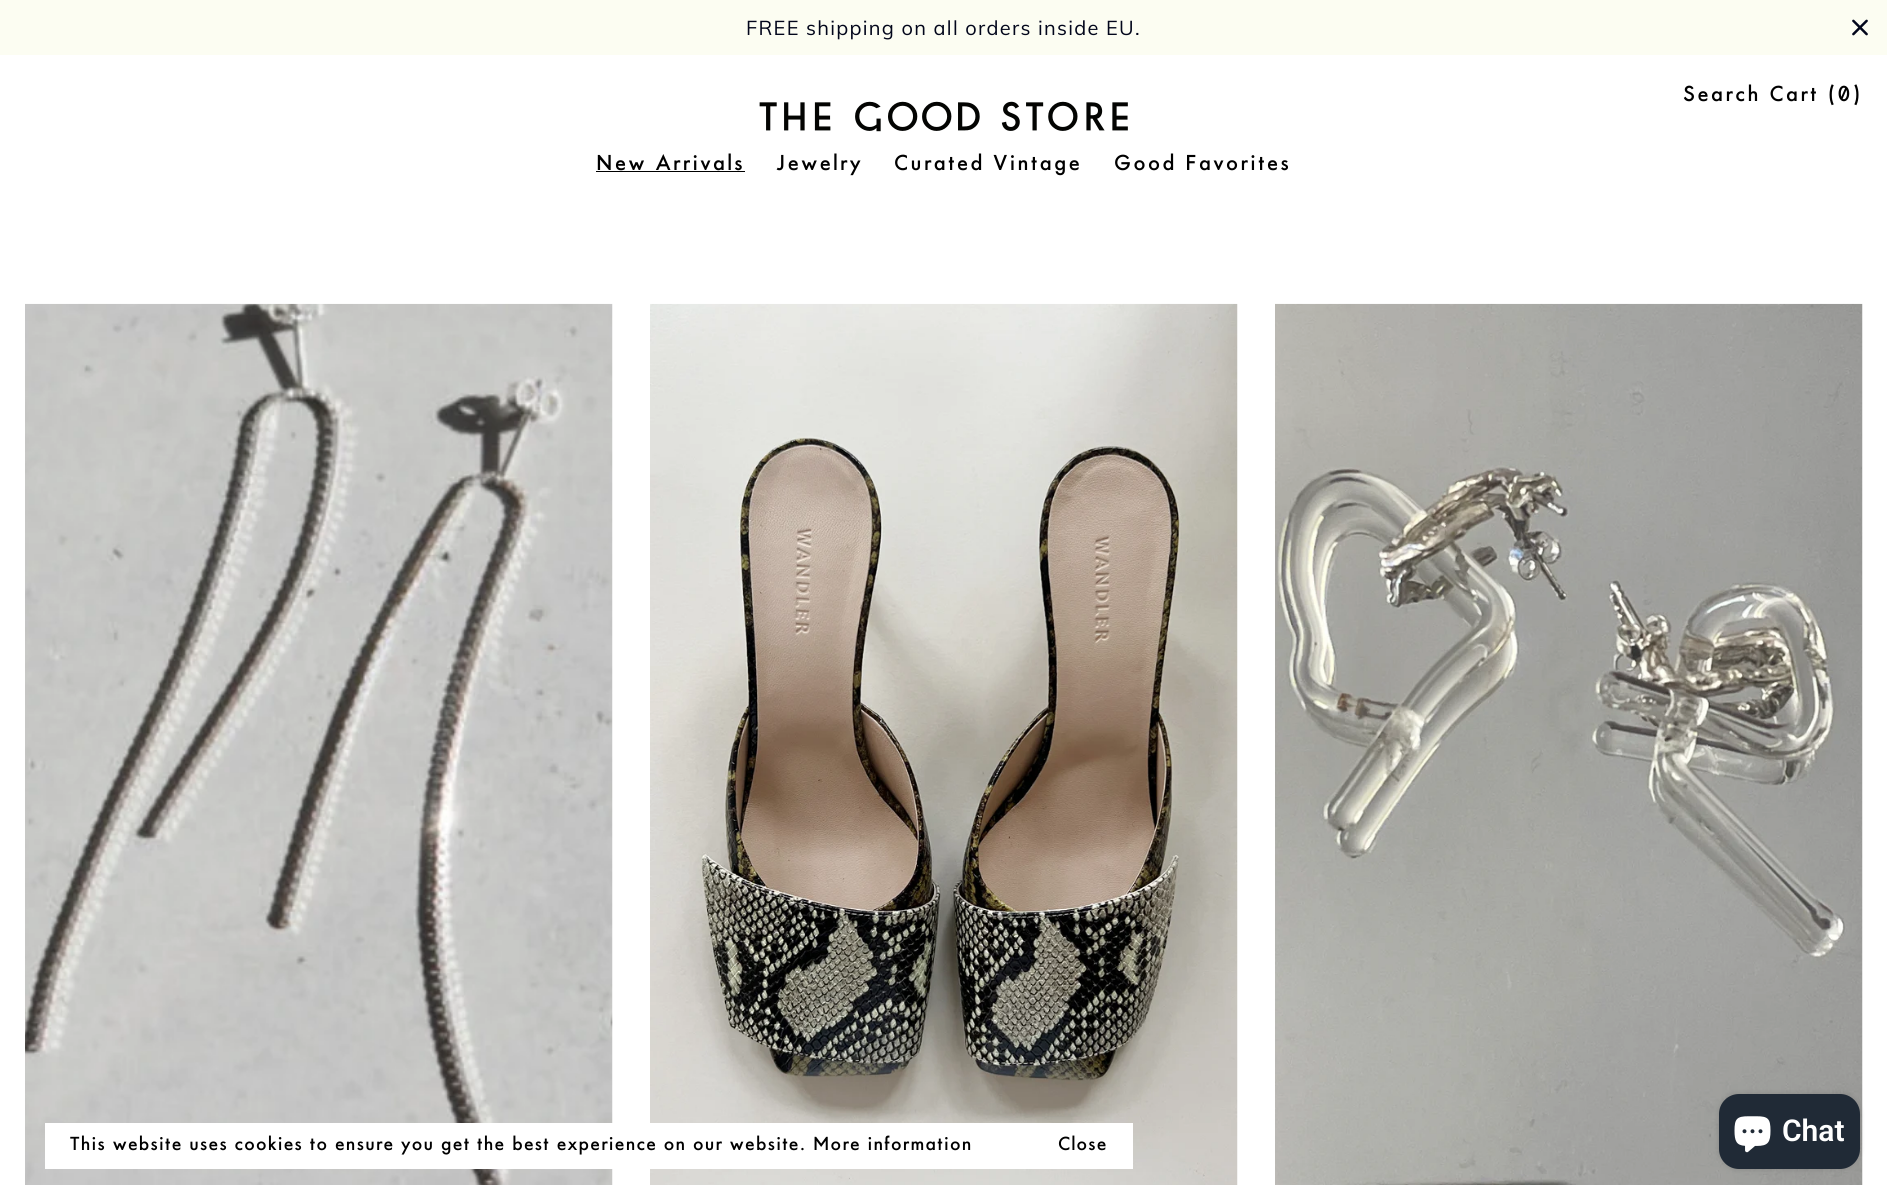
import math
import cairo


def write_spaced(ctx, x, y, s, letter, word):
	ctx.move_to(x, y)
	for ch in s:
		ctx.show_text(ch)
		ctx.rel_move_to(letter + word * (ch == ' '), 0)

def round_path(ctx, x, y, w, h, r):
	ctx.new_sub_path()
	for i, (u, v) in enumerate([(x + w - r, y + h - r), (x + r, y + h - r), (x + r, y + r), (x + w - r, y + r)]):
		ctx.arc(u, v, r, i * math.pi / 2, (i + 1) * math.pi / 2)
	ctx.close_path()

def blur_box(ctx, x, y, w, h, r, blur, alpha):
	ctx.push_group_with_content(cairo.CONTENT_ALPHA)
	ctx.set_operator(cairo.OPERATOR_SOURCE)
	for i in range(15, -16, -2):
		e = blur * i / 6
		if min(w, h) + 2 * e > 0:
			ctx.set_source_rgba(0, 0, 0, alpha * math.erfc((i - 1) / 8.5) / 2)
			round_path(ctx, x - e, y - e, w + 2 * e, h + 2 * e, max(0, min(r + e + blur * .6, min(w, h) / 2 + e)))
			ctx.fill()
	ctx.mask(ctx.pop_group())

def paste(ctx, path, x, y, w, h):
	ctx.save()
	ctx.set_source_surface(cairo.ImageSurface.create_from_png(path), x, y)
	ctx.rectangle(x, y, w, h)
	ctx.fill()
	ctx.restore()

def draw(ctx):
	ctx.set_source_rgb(1, 1, 1)
	ctx.paint()
	ctx.set_source_rgb(0.988, 0.992, 0.949)
	ctx.rectangle(0, 0, 1887, 55)
	ctx.fill()
	ctx.select_font_face('Muli')
	ctx.set_font_size(20)
	ctx.set_source_rgb(0.008, 0.024, 0.106)
	write_spaced(ctx, 746, 35, 'FREE shipping on all orders inside EU.', 1.25, 0)
	paste(ctx, 'media/1.png', 1852, 19, 16, 17)
	ctx.select_font_face('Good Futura')
	ctx.set_source_rgb(0, 0, 0)
	write_spaced(ctx, 1683, 101, 'Search Cart (0)', 2.5, 0)
	paste(ctx, 'media/2.png', 759, 101, 369, 31)
	write_spaced(ctx, 596, 170, 'New Arrivals', 2.5, 0)
	ctx.rectangle(596, 171, 149, 1)
	ctx.fill()
	for x, y, s in [
		(777, 170, 'Jewelry'),
		(894, 170, 'Curated Vintage'),
		(1114, 170, 'Good Favorites'),
	]:
		write_spaced(ctx, x, y, s, 2.5, 0)
	paste(ctx, 'media/3.png', 25, 303, 588, 882)
	paste(ctx, 'media/4.png', 650, 303, 588, 882)
	paste(ctx, 'media/5.png', 1275, 303, 588, 882)
	ctx.set_source_rgb(0, 0, 0)
	blur_box(ctx, 1719, 1094, 141, 75, 20, 3, 0.15)
	ctx.set_source_rgb(0.125, 0.165, 0.212)
	round_path(ctx, 1719, 1094, 141, 75, 20)
	ctx.fill()
	paste(ctx, 'media/6.png', 1734, 1116, 37, 37)
	ctx.select_font_face('Roboto SemiBold')
	ctx.set_font_size(30)
	ctx.set_source_rgb(1, 1, 1)
	ctx.move_to(1782, 1141)
	ctx.show_text('Chat')
	ctx.rectangle(45, 1123, 1088, 46)
	ctx.fill()
	ctx.select_font_face('Good Futura')
	ctx.set_font_size(17.5)
	ctx.set_source_rgb(0, 0, 0)
	write_spaced(ctx, 70, 1150, 'This website uses cookies to ensure you get the best experience on our website. More information', 1.25, 0)
	write_spaced(ctx, 1058, 1150, 'Close', 1.25, 0)


surface = cairo.ImageSurface(cairo.FORMAT_RGB24, 1887, 1194)
ctx = cairo.Context(surface)
options = cairo.FontOptions()
options.set_hint_metrics(cairo.HINT_METRICS_OFF)
options.set_hint_style(cairo.HINT_STYLE_NONE)
ctx.set_font_options(options)
ctx.set_miter_limit(4)
draw(ctx)
surface.write_to_png('image.png')
